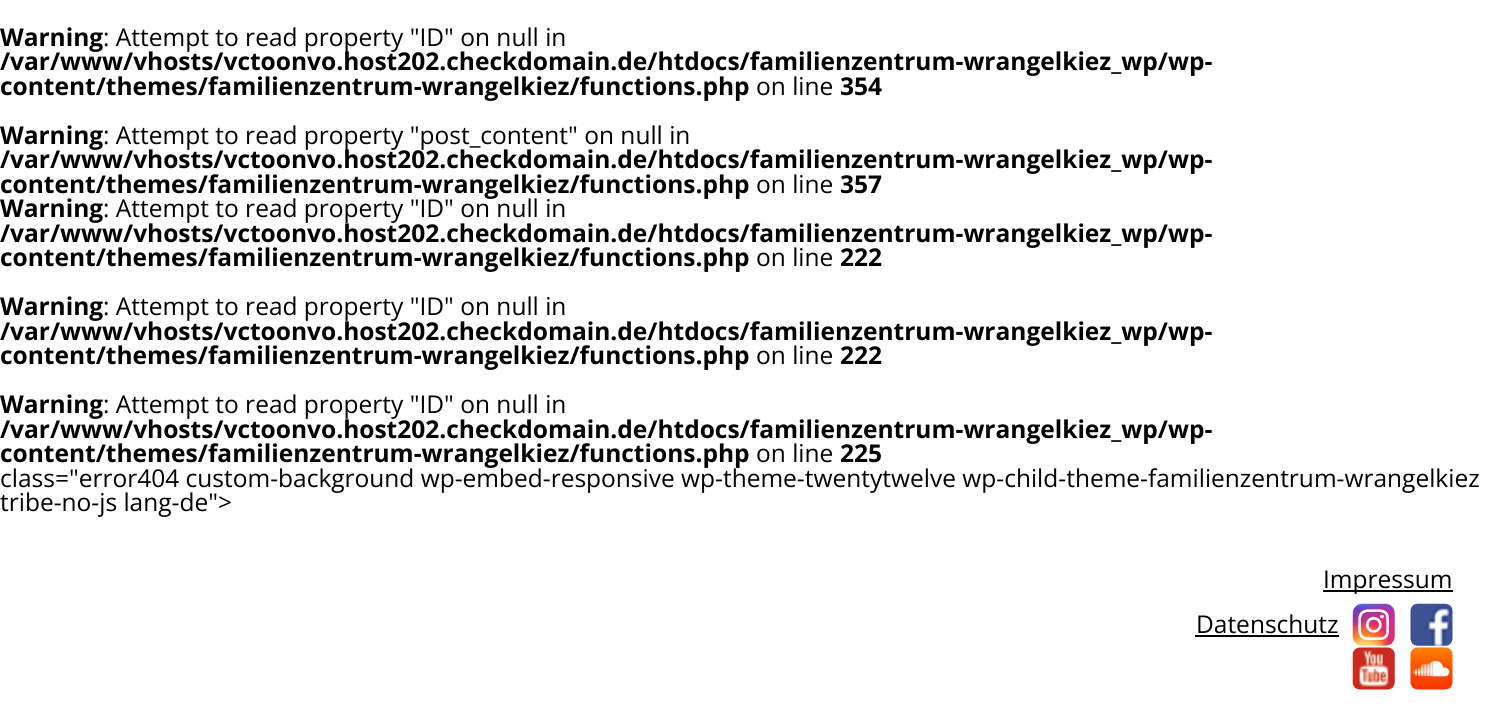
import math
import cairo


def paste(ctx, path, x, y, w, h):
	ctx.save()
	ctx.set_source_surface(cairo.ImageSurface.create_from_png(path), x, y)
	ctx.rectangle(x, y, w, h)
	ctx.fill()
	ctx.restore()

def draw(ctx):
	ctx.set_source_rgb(1, 1, 1)
	ctx.paint()
	ctx.select_font_face('Open Sans', cairo.FONT_SLANT_NORMAL, cairo.FONT_WEIGHT_BOLD)
	ctx.set_font_size(24.5)
	ctx.set_source_rgb(0, 0, 0)
	ctx.move_to(0, 46)
	ctx.show_text('Warning')
	ctx.select_font_face('Open Sans')
	ctx.move_to(103, 46)
	ctx.show_text(': Attempt to read property "ID" on null in')
	ctx.select_font_face('Open Sans', cairo.FONT_SLANT_NORMAL, cairo.FONT_WEIGHT_BOLD)
	ctx.move_to(0, 70)
	ctx.show_text('/var/www/vhosts/vctoonvo.host202.checkdomain.de/htdocs/familienzentrum-wrangelkiez_wp/wp-')
	ctx.move_to(0, 95)
	ctx.show_text('content/themes/familienzentrum-wrangelkiez/functions.php')
	ctx.select_font_face('Open Sans')
	ctx.move_to(756, 95)
	ctx.show_text('on line')
	ctx.select_font_face('Open Sans', cairo.FONT_SLANT_NORMAL, cairo.FONT_WEIGHT_BOLD)
	ctx.move_to(840, 95)
	ctx.show_text('354')
	ctx.move_to(0, 144)
	ctx.show_text('Warning')
	ctx.select_font_face('Open Sans')
	ctx.move_to(103, 144)
	ctx.show_text(': Attempt to read property "post_content" on null in')
	ctx.select_font_face('Open Sans', cairo.FONT_SLANT_NORMAL, cairo.FONT_WEIGHT_BOLD)
	ctx.move_to(0, 168)
	ctx.show_text('/var/www/vhosts/vctoonvo.host202.checkdomain.de/htdocs/familienzentrum-wrangelkiez_wp/wp-')
	ctx.move_to(0, 193)
	ctx.show_text('content/themes/familienzentrum-wrangelkiez/functions.php')
	ctx.select_font_face('Open Sans')
	ctx.move_to(756, 193)
	ctx.show_text('on line')
	ctx.select_font_face('Open Sans', cairo.FONT_SLANT_NORMAL, cairo.FONT_WEIGHT_BOLD)
	ctx.move_to(840, 193)
	ctx.show_text('357')
	ctx.move_to(0, 217)
	ctx.show_text('Warning')
	ctx.select_font_face('Open Sans')
	ctx.move_to(103, 217)
	ctx.show_text(': Attempt to read property "ID" on null in')
	ctx.select_font_face('Open Sans', cairo.FONT_SLANT_NORMAL, cairo.FONT_WEIGHT_BOLD)
	ctx.move_to(0, 242)
	ctx.show_text('/var/www/vhosts/vctoonvo.host202.checkdomain.de/htdocs/familienzentrum-wrangelkiez_wp/wp-')
	ctx.move_to(0, 266)
	ctx.show_text('content/themes/familienzentrum-wrangelkiez/functions.php')
	ctx.select_font_face('Open Sans')
	ctx.move_to(756, 266)
	ctx.show_text('on line')
	ctx.select_font_face('Open Sans', cairo.FONT_SLANT_NORMAL, cairo.FONT_WEIGHT_BOLD)
	ctx.move_to(840, 266)
	ctx.show_text('222')
	ctx.move_to(0, 315)
	ctx.show_text('Warning')
	ctx.select_font_face('Open Sans')
	ctx.move_to(103, 315)
	ctx.show_text(': Attempt to read property "ID" on null in')
	ctx.select_font_face('Open Sans', cairo.FONT_SLANT_NORMAL, cairo.FONT_WEIGHT_BOLD)
	ctx.move_to(0, 340)
	ctx.show_text('/var/www/vhosts/vctoonvo.host202.checkdomain.de/htdocs/familienzentrum-wrangelkiez_wp/wp-')
	ctx.move_to(0, 364)
	ctx.show_text('content/themes/familienzentrum-wrangelkiez/functions.php')
	ctx.select_font_face('Open Sans')
	ctx.move_to(756, 364)
	ctx.show_text('on line')
	ctx.select_font_face('Open Sans', cairo.FONT_SLANT_NORMAL, cairo.FONT_WEIGHT_BOLD)
	ctx.move_to(840, 364)
	ctx.show_text('222')
	ctx.move_to(0, 413)
	ctx.show_text('Warning')
	ctx.select_font_face('Open Sans')
	ctx.move_to(103, 413)
	ctx.show_text(': Attempt to read property "ID" on null in')
	ctx.select_font_face('Open Sans', cairo.FONT_SLANT_NORMAL, cairo.FONT_WEIGHT_BOLD)
	ctx.move_to(0, 438)
	ctx.show_text('/var/www/vhosts/vctoonvo.host202.checkdomain.de/htdocs/familienzentrum-wrangelkiez_wp/wp-')
	ctx.move_to(0, 462)
	ctx.show_text('content/themes/familienzentrum-wrangelkiez/functions.php')
	ctx.select_font_face('Open Sans')
	ctx.move_to(756, 462)
	ctx.show_text('on line')
	ctx.select_font_face('Open Sans', cairo.FONT_SLANT_NORMAL, cairo.FONT_WEIGHT_BOLD)
	ctx.move_to(840, 462)
	ctx.show_text('225')
	ctx.select_font_face('Open Sans')
	ctx.move_to(0, 487)
	ctx.show_text('class="error404 custom-background wp-embed-responsive wp-theme-twentytwelve wp-child-theme-familienzentrum-wrangelkiez')
	ctx.move_to(0, 511)
	ctx.show_text('tribe-no-js lang-de">')
	ctx.rectangle(1323, 590, 130, 2)
	ctx.fill()
	ctx.move_to(1323, 588)
	ctx.show_text('Impressum')
	ctx.move_to(1196, 633)
	ctx.show_text('Datenschutz')
	ctx.rectangle(1195, 635, 144, 2)
	ctx.fill()
	paste(ctx, 'media/1.png', 1352, 603, 43, 43)
	paste(ctx, 'media/2.png', 1410, 603, 43, 43)
	paste(ctx, 'media/3.png', 1352, 647, 43, 43)
	paste(ctx, 'media/4.png', 1410, 647, 43, 43)


surface = cairo.ImageSurface(cairo.FORMAT_RGB24, 1502, 716)
ctx = cairo.Context(surface)
options = cairo.FontOptions()
options.set_hint_metrics(cairo.HINT_METRICS_OFF)
options.set_hint_style(cairo.HINT_STYLE_NONE)
ctx.set_font_options(options)
ctx.set_miter_limit(4)
draw(ctx)
surface.write_to_png('image.png')
